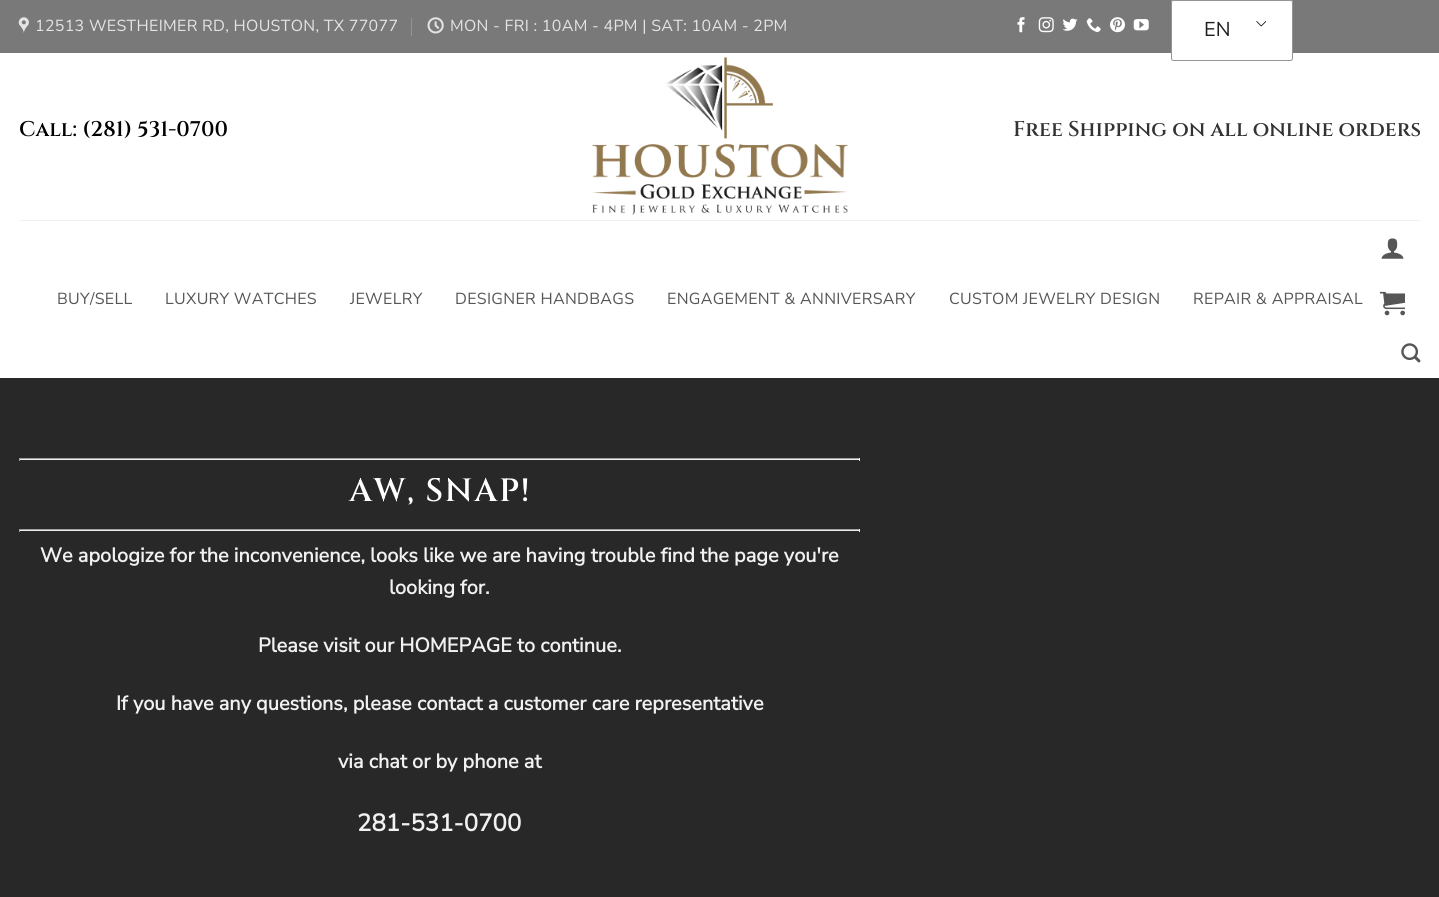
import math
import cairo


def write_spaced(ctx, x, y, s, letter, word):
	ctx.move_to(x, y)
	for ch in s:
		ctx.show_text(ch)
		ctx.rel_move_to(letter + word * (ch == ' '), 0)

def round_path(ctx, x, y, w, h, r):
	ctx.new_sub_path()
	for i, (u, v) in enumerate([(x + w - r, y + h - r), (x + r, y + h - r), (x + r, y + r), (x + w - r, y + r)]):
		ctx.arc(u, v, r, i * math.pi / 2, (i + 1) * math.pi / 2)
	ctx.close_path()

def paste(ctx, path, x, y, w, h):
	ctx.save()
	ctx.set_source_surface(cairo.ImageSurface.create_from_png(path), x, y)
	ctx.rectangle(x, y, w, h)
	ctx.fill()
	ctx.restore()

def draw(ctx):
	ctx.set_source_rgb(1, 1, 1)
	ctx.paint()
	ctx.set_source_rgb(0.475, 0.475, 0.475)
	ctx.rectangle(0, 0, 1439, 53)
	ctx.fill()
	paste(ctx, 'media/1.png', 18, 17, 11, 16)
	ctx.select_font_face('Nunito Sans ExtraLight')
	ctx.set_font_size(16)
	ctx.set_source_rgb(0.894, 0.894, 0.894)
	write_spaced(ctx, 35, 31, '12513 WESTHEIMER RD, HOUSTON, TX 77077', 0.3, 0)
	ctx.set_source_rgb(0.58, 0.58, 0.58)
	ctx.rectangle(411, 18, 1, 18)
	ctx.fill()
	paste(ctx, 'media/2.png', 427, 17, 17, 17)
	ctx.set_source_rgb(0.894, 0.894, 0.894)
	write_spaced(ctx, 450, 31, 'MON - FRI : 10AM - 4PM | SAT: 10AM - 2PM', 0.3, 0)
	paste(ctx, 'media/3.png', 1017, 17, 8, 16)
	paste(ctx, 'media/4.png', 1038, 17, 16, 16)
	paste(ctx, 'media/5.png', 1062, 18, 16, 13)
	paste(ctx, 'media/6.png', 1086, 18, 15, 15)
	paste(ctx, 'media/7.png', 1110, 17, 15, 16)
	paste(ctx, 'media/8.png', 1133, 19, 16, 12)
	ctx.set_source_rgb(1, 1, 1)
	round_path(ctx, 1171, 0, 122, 61, 2.5)
	ctx.fill()
	paste(ctx, 'media/9.png', 1256, 21, 10, 6)
	round_path(ctx, 1171.5, 0.5, 121, 60, 2)
	ctx.set_source_rgb(0.58, 0.58, 0.58)
	ctx.set_line_width(1)
	ctx.stroke()
	ctx.set_font_size(20)
	ctx.set_source_rgb(0.118, 0.118, 0.118)
	ctx.move_to(1204, 36)
	ctx.show_text('EN')
	ctx.select_font_face('Cinzel SemiBold')
	ctx.set_font_size(21.25)
	ctx.set_source_rgb(0, 0, 0)
	ctx.move_to(19, 136)
	ctx.show_text('Call: (281) 531-0700')
	paste(ctx, 'media/10.png', 592, 57, 256, 158)
	ctx.set_source_rgb(0.2, 0.2, 0.2)
	ctx.move_to(1013, 136)
	ctx.show_text('Free Shipping on all online orders')
	ctx.set_source_rgb(0.945, 0.945, 0.945)
	ctx.rectangle(19, 220, 1402, 1)
	ctx.fill()
	ctx.select_font_face('Nunito Sans ExtraLight')
	ctx.set_font_size(16)
	ctx.set_source_rgb(0.337, 0.337, 0.337)
	for x, y, s in [
		(57, 304, 'BUY/SELL'),
		(165, 304, 'LUXURY WATCHES'),
		(350, 304, 'JEWELRY'),
		(455, 304, 'DESIGNER HANDBAGS'),
		(667, 304, 'ENGAGEMENT & ANNIVERSARY'),
		(949, 304, 'CUSTOM JEWELRY DESIGN'),
		(1193, 304, 'REPAIR & APPRAISAL'),
	]:
		write_spaced(ctx, x, y, s, 0.3, 0)
	paste(ctx, 'media/11.png', 1381, 238, 23, 21)
	paste(ctx, 'media/12.png', 1380, 291, 25, 25)
	paste(ctx, 'media/13.png', 1401, 343, 20, 20)
	ctx.set_source_rgb(0.157, 0.157, 0.157)
	ctx.rectangle(0, 378, 1439, 519)
	ctx.fill()
	ctx.set_source_rgb(0.624, 0.624, 0.624)
	ctx.rectangle(19, 458, 841, 1)
	ctx.fill()
	ctx.set_source_rgb(0.933, 0.933, 0.933)
	ctx.rectangle(859, 458, 1, 3)
	ctx.rectangle(19, 459, 841, 1)
	ctx.fill()
	ctx.set_source_rgb(0.624, 0.624, 0.624)
	ctx.rectangle(19, 458, 1, 3)
	ctx.fill()
	ctx.select_font_face('Cinzel SemiBold')
	ctx.set_font_size(32.25)
	ctx.set_source_rgb(1, 1, 1)
	write_spaced(ctx, 349, 501, 'AW, SNAP!', 1.75, 0)
	ctx.set_source_rgb(0.624, 0.624, 0.624)
	ctx.rectangle(19, 529, 841, 1)
	ctx.fill()
	ctx.set_source_rgb(0.933, 0.933, 0.933)
	ctx.rectangle(859, 529, 1, 3)
	ctx.rectangle(19, 530, 841, 1)
	ctx.fill()
	ctx.set_source_rgb(0.624, 0.624, 0.624)
	ctx.rectangle(19, 529, 1, 3)
	ctx.fill()
	ctx.select_font_face('Nunito Sans', cairo.FONT_SLANT_NORMAL, cairo.FONT_WEIGHT_BOLD)
	ctx.set_font_size(20)
	ctx.set_source_rgb(0.945, 0.945, 0.945)
	for x, y, s in [
		(40, 562, 'We apologize for the inconvenience, looks like we are having trouble find the page you\'re'),
		(389, 594, 'looking for.'),
		(258, 652, 'Please visit our HOMEPAGE to continue.'),
		(116, 710, 'If you have any questions, please contact a customer care representative'),
		(338, 768, 'via chat or by phone at'),
	]:
		ctx.move_to(x, y)
		ctx.show_text(s)
	ctx.set_font_size(24)
	ctx.move_to(357, 831)
	ctx.show_text('281-531-0700')


surface = cairo.ImageSurface(cairo.FORMAT_RGB24, 1439, 897)
ctx = cairo.Context(surface)
options = cairo.FontOptions()
options.set_hint_metrics(cairo.HINT_METRICS_OFF)
options.set_hint_style(cairo.HINT_STYLE_NONE)
ctx.set_font_options(options)
ctx.set_miter_limit(4)
draw(ctx)
surface.write_to_png('image.png')
